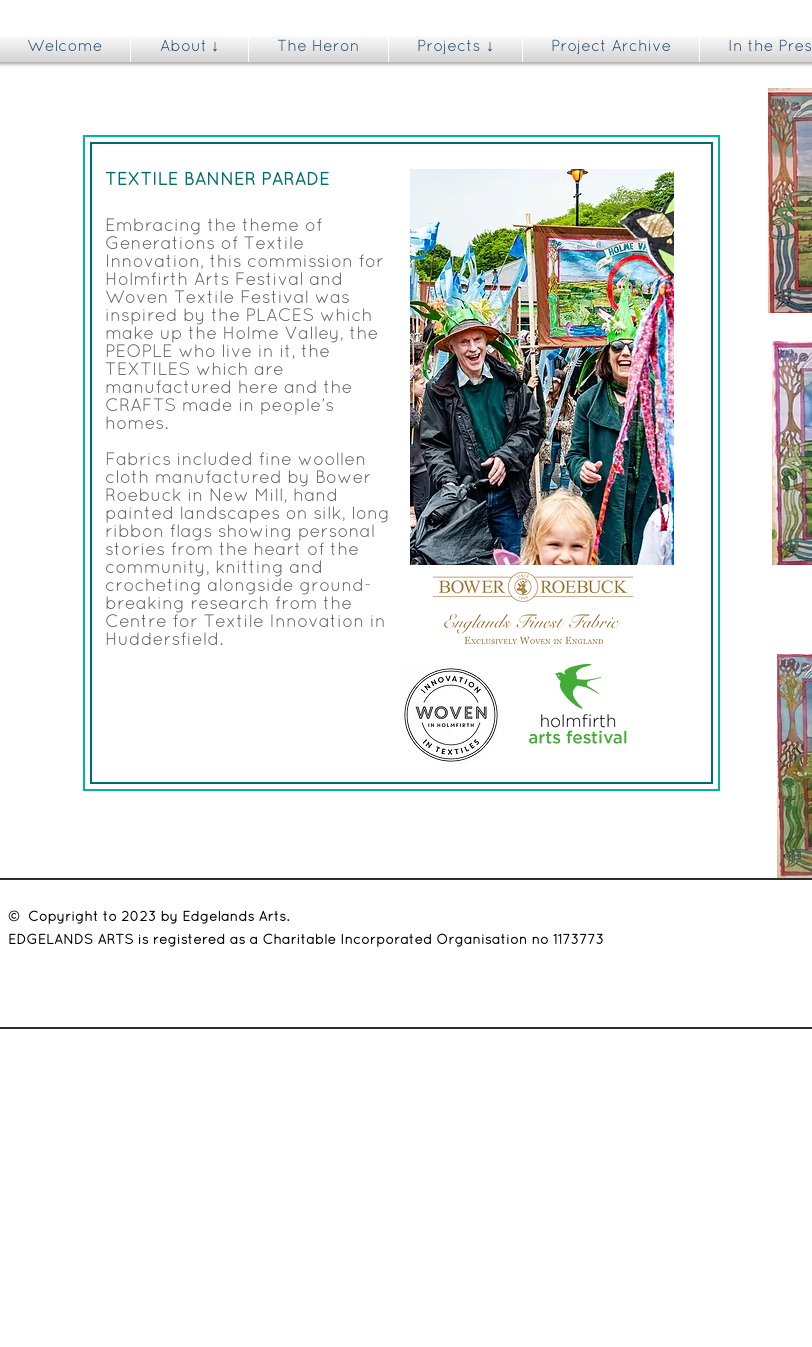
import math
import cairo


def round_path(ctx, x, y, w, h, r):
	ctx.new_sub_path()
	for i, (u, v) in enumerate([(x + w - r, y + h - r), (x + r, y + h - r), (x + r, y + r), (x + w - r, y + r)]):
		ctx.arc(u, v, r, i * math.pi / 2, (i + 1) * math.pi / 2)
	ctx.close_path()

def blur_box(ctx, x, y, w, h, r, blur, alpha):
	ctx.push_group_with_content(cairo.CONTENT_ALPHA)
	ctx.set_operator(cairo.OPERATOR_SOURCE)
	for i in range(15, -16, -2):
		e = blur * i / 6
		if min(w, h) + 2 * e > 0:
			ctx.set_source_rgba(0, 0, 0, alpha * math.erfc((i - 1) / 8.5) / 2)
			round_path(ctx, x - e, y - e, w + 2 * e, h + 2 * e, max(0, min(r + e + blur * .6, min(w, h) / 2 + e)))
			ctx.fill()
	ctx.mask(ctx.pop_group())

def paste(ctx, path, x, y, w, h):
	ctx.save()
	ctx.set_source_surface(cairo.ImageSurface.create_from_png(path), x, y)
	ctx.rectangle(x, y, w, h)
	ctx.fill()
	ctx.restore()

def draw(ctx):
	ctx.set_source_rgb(1, 1, 1)
	ctx.paint()
	ctx.set_source_rgb(0.635, 0.62, 0.62)
	blur_box(ctx, -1, 34, 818, 30, 0, 1.5, 0.6)
	blur_box(ctx, -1, 34, 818, 30, 0, 1.5, 0.6)
	ctx.set_source_rgb(1, 1, 1)
	ctx.rectangle(0, 31, 812, 31)
	ctx.fill()
	ctx.select_font_face('Quicksand')
	ctx.set_font_size(16)
	ctx.set_source_rgb(0, 0.18, 0.365)
	ctx.move_to(27, 51)
	ctx.show_text('Welcome')
	paste(ctx, 'media/1.png', 28, 40, 73, 11)
	paste(ctx, 'media/2.png', 0, 36, 130, 26)
	ctx.move_to(160, 51)
	ctx.show_text('About')
	ctx.select_font_face('Liberation Serif')
	ctx.move_to(211, 51)
	ctx.show_text('↓')
	paste(ctx, 'media/3.png', 160, 40, 58, 12)
	paste(ctx, 'media/4.png', 131, 36, 117, 26)
	ctx.select_font_face('Quicksand')
	ctx.move_to(277, 51)
	ctx.show_text('The Heron')
	paste(ctx, 'media/5.png', 278, 39, 80, 12)
	paste(ctx, 'media/6.png', 249, 36, 139, 26)
	ctx.move_to(417, 51)
	ctx.show_text('Projects')
	ctx.select_font_face('Liberation Serif')
	ctx.move_to(486, 51)
	ctx.show_text('↓')
	paste(ctx, 'media/7.png', 419, 39, 73, 15)
	paste(ctx, 'media/8.png', 389, 36, 133, 26)
	ctx.select_font_face('Quicksand')
	ctx.move_to(551, 51)
	ctx.show_text('Project Archive')
	paste(ctx, 'media/9.png', 552, 39, 118, 15)
	paste(ctx, 'media/10.png', 523, 36, 176, 26)
	ctx.move_to(728, 51)
	ctx.show_text('In the Pres')
	paste(ctx, 'media/11.png', 729, 39, 82, 12)
	paste(ctx, 'media/12.png', 700, 36, 112, 26)
	ctx.rectangle(84, 136, 635, 654)
	ctx.set_source_rgb(0.004, 0.694, 0.686)
	ctx.stroke()
	ctx.rectangle(91, 143, 621, 640)
	ctx.set_source_rgb(0, 0.424, 0.427)
	ctx.stroke()
	ctx.select_font_face('Quicksand', cairo.FONT_SLANT_NORMAL, cairo.FONT_WEIGHT_BOLD)
	ctx.set_font_size(18)
	ctx.move_to(105, 185)
	ctx.show_text('TEXTILE BANNER PARADE')
	ctx.select_font_face('Quicksand')
	ctx.set_source_rgb(0.369, 0.365, 0.365)
	for x, y, s in [
		(105, 231, 'Embracing the theme of'),
		(105, 249, 'Generations of Textile'),
		(105, 267, 'Innovation, this commission for'),
		(105, 285, 'Holmfirth Arts Festival and'),
		(105, 303, 'Woven Textile Festival was'),
		(105, 321, 'inspired by the PLACES which'),
		(105, 339, 'make up the Holme Valley, the'),
		(105, 357, 'PEOPLE who live in it, the'),
		(105, 375, 'TEXTILES which are'),
		(105, 393, 'manufactured here and the'),
		(105, 411, 'CRAFTS made in people’s'),
		(105, 429, 'homes.'),
		(105, 465, 'Fabrics included fine woollen'),
		(105, 483, 'cloth manufactured by Bower'),
		(105, 501, 'Roebuck in New Mill, hand'),
		(105, 519, 'painted landscapes on silk, long'),
		(105, 537, 'ribbon flags showing personal'),
		(105, 555, 'stories from the heart of the'),
		(105, 573, 'community, knitting and'),
		(105, 591, 'crocheting alongside ground-'),
		(105, 609, 'breaking research from the'),
		(105, 627, 'Centre for Textile Innovation in'),
		(105, 645, 'Huddersfield.'),
	]:
		ctx.move_to(x, y)
		ctx.show_text(s)
	paste(ctx, 'media/13.png', 410, 169, 264, 396)
	paste(ctx, 'media/14.png', 433, 572, 200, 72)
	paste(ctx, 'media/15.png', 403, 667, 96, 96)
	paste(ctx, 'media/16.png', 529, 664, 98, 80)
	paste(ctx, 'media/17.png', 768, 88, 44, 225)
	paste(ctx, 'media/18.png', 772, 341, 40, 224)
	paste(ctx, 'media/19.png', 777, 654, 35, 224)
	ctx.set_source_rgb(0.173, 0.173, 0.169)
	ctx.rectangle(0, 878, 812, 2)
	ctx.fill()
	ctx.rectangle(0, 1027, 812, 2)
	ctx.fill()
	ctx.select_font_face('Quicksand', cairo.FONT_SLANT_NORMAL, cairo.FONT_WEIGHT_BOLD)
	ctx.set_font_size(14)
	ctx.set_source_rgb(0, 0, 0)
	ctx.move_to(8, 921)
	ctx.show_text('©  Copyright to 2023 by Edgelands Arts.')
	ctx.move_to(8, 944)
	ctx.show_text('EDGELANDS ARTS is registered as a Charitable Incorporated Organisation no 1173773')


surface = cairo.ImageSurface(cairo.FORMAT_RGB24, 812, 1347)
ctx = cairo.Context(surface)
options = cairo.FontOptions()
options.set_hint_metrics(cairo.HINT_METRICS_OFF)
options.set_hint_style(cairo.HINT_STYLE_NONE)
ctx.set_font_options(options)
ctx.set_miter_limit(4)
draw(ctx)
surface.write_to_png('image.png')
